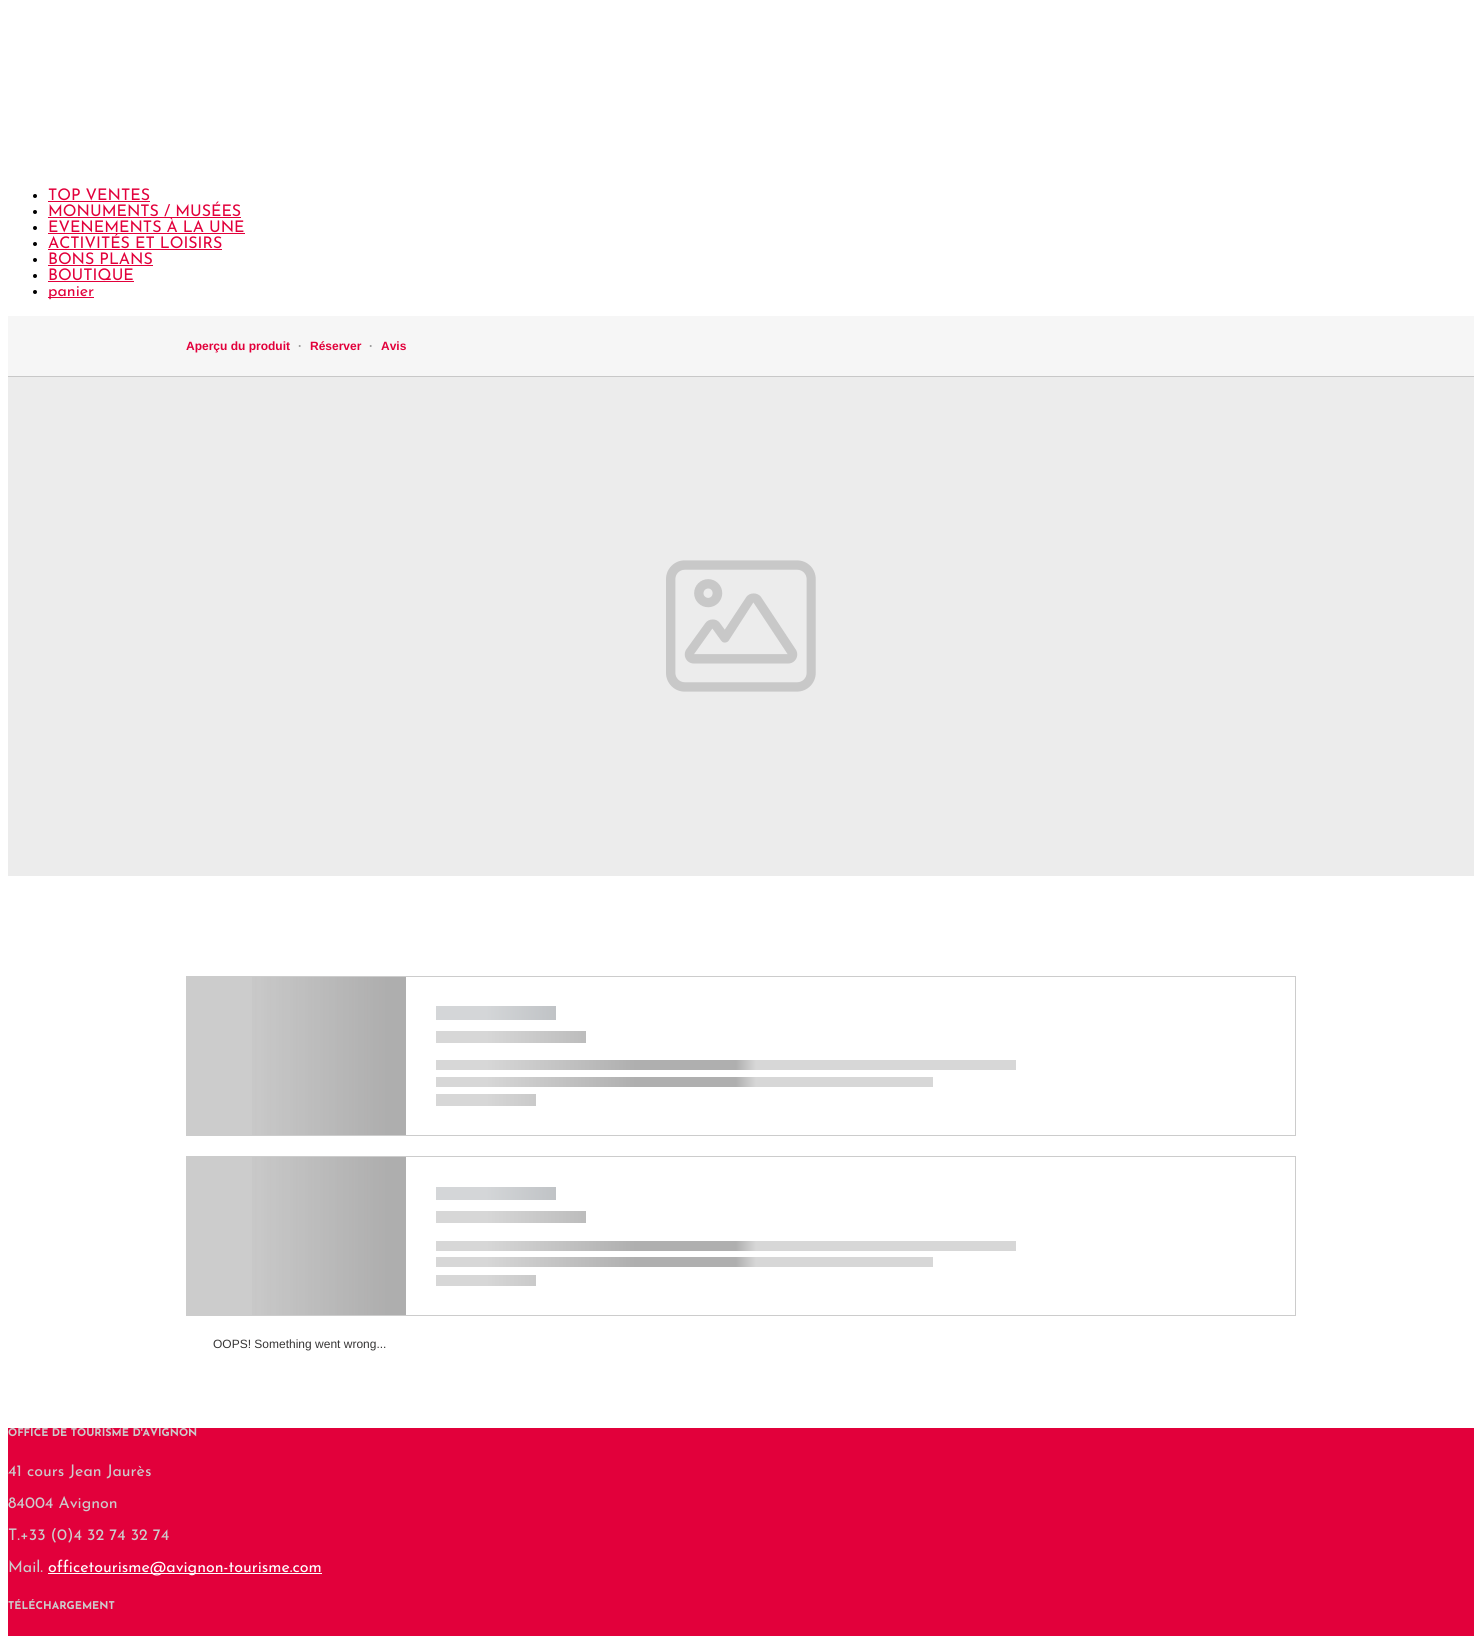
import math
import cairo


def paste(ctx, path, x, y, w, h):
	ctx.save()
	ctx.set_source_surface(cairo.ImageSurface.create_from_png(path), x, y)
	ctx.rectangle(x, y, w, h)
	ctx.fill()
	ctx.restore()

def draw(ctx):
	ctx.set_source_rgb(1, 1, 1)
	ctx.paint()
	ctx.set_source_rgb(0.922, 0.922, 0.922)
	ctx.rectangle(8, 377, 1466, 499)
	ctx.fill()
	ctx.set_source_rgb(0, 0, 0)
	ctx.arc(35, 196, 2, 0, 2 * math.pi)
	ctx.fill()
	ctx.select_font_face('Josefin Sans')
	ctx.set_font_size(16)
	ctx.set_source_rgb(0.886, 0, 0.231)
	ctx.move_to(48, 200)
	ctx.show_text('TOP VENTES')
	ctx.rectangle(48, 201, 102, 1)
	ctx.fill()
	ctx.set_source_rgb(0, 0, 0)
	ctx.arc(35, 212, 2, 0, 2 * math.pi)
	ctx.fill()
	ctx.set_source_rgb(0.886, 0, 0.231)
	ctx.move_to(48, 216)
	ctx.show_text('MONUMENTS / MUSÉES')
	ctx.rectangle(48, 217, 193, 1)
	ctx.fill()
	ctx.set_source_rgb(0, 0, 0)
	ctx.arc(35, 228, 2, 0, 2 * math.pi)
	ctx.fill()
	ctx.set_source_rgb(0.886, 0, 0.231)
	ctx.move_to(48, 232)
	ctx.show_text('EVENEMENTS À LA UNE')
	ctx.rectangle(48, 233, 197, 1)
	ctx.fill()
	ctx.set_source_rgb(0, 0, 0)
	ctx.arc(35, 244, 2, 0, 2 * math.pi)
	ctx.fill()
	ctx.set_source_rgb(0.886, 0, 0.231)
	ctx.move_to(48, 248)
	ctx.show_text('ACTIVITÉS ET LOISIRS')
	ctx.rectangle(48, 249, 174, 1)
	ctx.fill()
	ctx.set_source_rgb(0, 0, 0)
	ctx.arc(35, 260, 2, 0, 2 * math.pi)
	ctx.fill()
	ctx.set_source_rgb(0.886, 0, 0.231)
	ctx.move_to(48, 264)
	ctx.show_text('BONS PLANS')
	ctx.rectangle(48, 265, 105, 1)
	ctx.fill()
	ctx.set_source_rgb(0, 0, 0)
	ctx.arc(35, 276, 2, 0, 2 * math.pi)
	ctx.fill()
	ctx.set_source_rgb(0.886, 0, 0.231)
	ctx.move_to(48, 280)
	ctx.show_text('BOUTIQUE')
	ctx.rectangle(48, 281, 86, 1)
	ctx.fill()
	ctx.set_source_rgb(0, 0, 0)
	ctx.arc(35, 292, 2, 0, 2 * math.pi)
	ctx.fill()
	ctx.set_source_rgb(0.886, 0, 0.231)
	ctx.rectangle(48, 297, 46, 1)
	ctx.fill()
	ctx.move_to(48, 296)
	ctx.show_text('panier')
	ctx.set_source_rgb(0.784, 0.784, 0.784)
	ctx.rectangle(8, 376, 1466, 1)
	ctx.fill()
	ctx.set_source_rgb(0.961, 0.961, 0.961)
	ctx.rectangle(8, 316, 1466, 60)
	ctx.fill()
	ctx.select_font_face('Liberation Sans', cairo.FONT_SLANT_NORMAL, cairo.FONT_WEIGHT_BOLD)
	ctx.set_font_size(12)
	ctx.set_source_rgb(0.886, 0, 0.231)
	ctx.move_to(186, 350)
	ctx.show_text('Aperçu du produit')
	ctx.set_source_rgb(0.588, 0.588, 0.588)
	ctx.move_to(298, 350)
	ctx.show_text('·')
	ctx.set_source_rgb(0.886, 0, 0.231)
	ctx.move_to(310, 350)
	ctx.show_text('Réserver')
	ctx.set_source_rgb(0.588, 0.588, 0.588)
	ctx.move_to(369, 350)
	ctx.show_text('·')
	ctx.set_source_rgb(0.886, 0, 0.231)
	ctx.move_to(381, 350)
	ctx.show_text('Avis')
	paste(ctx, 'media/1.png', 666, 560, 150, 132)
	ctx.rectangle(186.5, 976.5, 1109, 159)
	ctx.set_source_rgb(0.8, 0.8, 0.8)
	ctx.set_line_width(1)
	ctx.stroke()
	ctx.set_source_rgba(0.216, 0.212, 0.212, 0.25)
	ctx.rectangle(187, 977, 219, 158)
	ctx.fill()
	gradient = cairo.LinearGradient(186, 1026, 1186, 1026)
	gradient.add_color_stop_rgba(0.05, 0.216, 0.212, 0.212, 0)
	gradient.add_color_stop_rgba(0.2, 0.216, 0.212, 0.212, 0.2)
	gradient.add_color_stop_rgba(0.3, 0.216, 0.212, 0.212, 0.2)
	gradient.add_color_stop_rgba(0.32, 0.216, 0.212, 0.212, 0)
	ctx.set_source(gradient)
	ctx.rectangle(252, 977, 154, 158)
	ctx.fill()
	gradient = cairo.LinearGradient(436, 1056, 1436, 1056)
	gradient.add_color_stop_rgba(0.05, 0.831, 0.839, 0.847, 1)
	gradient.add_color_stop_rgba(0.2, 0.663, 0.678, 0.694, 1)
	gradient.add_color_stop_rgba(0.3, 0.663, 0.678, 0.694, 1)
	gradient.add_color_stop_rgba(0.32, 0.831, 0.839, 0.847, 1)
	ctx.set_source(gradient)
	ctx.rectangle(436, 1006, 120, 14)
	ctx.fill()
	gradient = cairo.LinearGradient(436, 1081, 1436, 1081)
	gradient.add_color_stop_rgba(0.05, 0.843, 0.843, 0.843, 1)
	gradient.add_color_stop_rgba(0.2, 0.686, 0.686, 0.686, 1)
	gradient.add_color_stop_rgba(0.3, 0.686, 0.686, 0.686, 1)
	gradient.add_color_stop_rgba(0.32, 0.843, 0.843, 0.843, 1)
	ctx.set_source(gradient)
	ctx.rectangle(436, 1031, 150, 12)
	ctx.fill()
	gradient = cairo.LinearGradient(436, 1110, 1436, 1110)
	gradient.add_color_stop_rgba(0.05, 0.843, 0.843, 0.843, 1)
	gradient.add_color_stop_rgba(0.2, 0.686, 0.686, 0.686, 1)
	gradient.add_color_stop_rgba(0.3, 0.686, 0.686, 0.686, 1)
	gradient.add_color_stop_rgba(0.32, 0.843, 0.843, 0.843, 1)
	ctx.set_source(gradient)
	ctx.rectangle(436, 1060, 580, 10)
	ctx.fill()
	gradient = cairo.LinearGradient(436, 1127, 1436, 1127)
	gradient.add_color_stop_rgba(0.05, 0.843, 0.843, 0.843, 1)
	gradient.add_color_stop_rgba(0.2, 0.686, 0.686, 0.686, 1)
	gradient.add_color_stop_rgba(0.3, 0.686, 0.686, 0.686, 1)
	gradient.add_color_stop_rgba(0.32, 0.843, 0.843, 0.843, 1)
	ctx.set_source(gradient)
	ctx.rectangle(436, 1077, 497, 10)
	ctx.fill()
	gradient = cairo.LinearGradient(436, 1144, 1436, 1144)
	gradient.add_color_stop_rgba(0.05, 0.843, 0.843, 0.843, 1)
	gradient.add_color_stop_rgba(0.2, 0.686, 0.686, 0.686, 1)
	gradient.add_color_stop_rgba(0.3, 0.686, 0.686, 0.686, 1)
	gradient.add_color_stop_rgba(0.32, 0.843, 0.843, 0.843, 1)
	ctx.set_source(gradient)
	ctx.rectangle(436, 1094, 100, 12)
	ctx.fill()
	ctx.rectangle(186.5, 1156.5, 1109, 159)
	ctx.set_source_rgb(0.8, 0.8, 0.8)
	ctx.stroke()
	ctx.set_source_rgba(0.216, 0.212, 0.212, 0.25)
	ctx.rectangle(187, 1157, 219, 158)
	ctx.fill()
	gradient = cairo.LinearGradient(186, 1206, 1186, 1206)
	gradient.add_color_stop_rgba(0.05, 0.216, 0.212, 0.212, 0)
	gradient.add_color_stop_rgba(0.2, 0.216, 0.212, 0.212, 0.2)
	gradient.add_color_stop_rgba(0.3, 0.216, 0.212, 0.212, 0.2)
	gradient.add_color_stop_rgba(0.32, 0.216, 0.212, 0.212, 0)
	ctx.set_source(gradient)
	ctx.rectangle(252, 1157, 154, 158)
	ctx.fill()
	gradient = cairo.LinearGradient(436, 1237, 1436, 1237)
	gradient.add_color_stop_rgba(0.05, 0.831, 0.839, 0.847, 1)
	gradient.add_color_stop_rgba(0.2, 0.663, 0.678, 0.694, 1)
	gradient.add_color_stop_rgba(0.3, 0.663, 0.678, 0.694, 1)
	gradient.add_color_stop_rgba(0.32, 0.831, 0.839, 0.847, 1)
	ctx.set_source(gradient)
	ctx.rectangle(436, 1187, 120, 13)
	ctx.fill()
	gradient = cairo.LinearGradient(436, 1261, 1436, 1261)
	gradient.add_color_stop_rgba(0.05, 0.843, 0.843, 0.843, 1)
	gradient.add_color_stop_rgba(0.2, 0.686, 0.686, 0.686, 1)
	gradient.add_color_stop_rgba(0.3, 0.686, 0.686, 0.686, 1)
	gradient.add_color_stop_rgba(0.32, 0.843, 0.843, 0.843, 1)
	ctx.set_source(gradient)
	ctx.rectangle(436, 1211, 150, 12)
	ctx.fill()
	gradient = cairo.LinearGradient(436, 1291, 1436, 1291)
	gradient.add_color_stop_rgba(0.05, 0.843, 0.843, 0.843, 1)
	gradient.add_color_stop_rgba(0.2, 0.686, 0.686, 0.686, 1)
	gradient.add_color_stop_rgba(0.3, 0.686, 0.686, 0.686, 1)
	gradient.add_color_stop_rgba(0.32, 0.843, 0.843, 0.843, 1)
	ctx.set_source(gradient)
	ctx.rectangle(436, 1241, 580, 10)
	ctx.fill()
	gradient = cairo.LinearGradient(436, 1307, 1436, 1307)
	gradient.add_color_stop_rgba(0.05, 0.843, 0.843, 0.843, 1)
	gradient.add_color_stop_rgba(0.2, 0.686, 0.686, 0.686, 1)
	gradient.add_color_stop_rgba(0.3, 0.686, 0.686, 0.686, 1)
	gradient.add_color_stop_rgba(0.32, 0.843, 0.843, 0.843, 1)
	ctx.set_source(gradient)
	ctx.rectangle(436, 1257, 497, 10)
	ctx.fill()
	gradient = cairo.LinearGradient(436, 1325, 1436, 1325)
	gradient.add_color_stop_rgba(0.05, 0.843, 0.843, 0.843, 1)
	gradient.add_color_stop_rgba(0.2, 0.686, 0.686, 0.686, 1)
	gradient.add_color_stop_rgba(0.3, 0.686, 0.686, 0.686, 1)
	gradient.add_color_stop_rgba(0.32, 0.843, 0.843, 0.843, 1)
	ctx.set_source(gradient)
	ctx.rectangle(436, 1275, 100, 11)
	ctx.fill()
	ctx.select_font_face('Liberation Sans')
	ctx.set_source_rgb(0.216, 0.212, 0.212)
	ctx.move_to(213, 1348)
	ctx.show_text('OOPS! Something went wrong...')
	ctx.set_source_rgb(0.886, 0, 0.231)
	ctx.rectangle(8, 1428, 1466, 208)
	ctx.fill()
	ctx.select_font_face('Josefin Sans', cairo.FONT_SLANT_NORMAL, cairo.FONT_WEIGHT_BOLD)
	ctx.set_font_size(10.75)
	ctx.set_source_rgb(0.8, 0.8, 0.8)
	ctx.move_to(8, 1436)
	ctx.show_text('OFFICE DE TOURISME D\'AVIGNON')
	ctx.select_font_face('Josefin Sans')
	ctx.set_font_size(16)
	for x, y, s in [
		(8, 1476, '41 cours Jean Jaurès'),
		(8, 1508, '84004 Avignon'),
		(8, 1540, 'T.+33 (0)4 32 74 32 74'),
		(8, 1572, 'Mail.'),
	]:
		ctx.move_to(x, y)
		ctx.show_text(s)
	ctx.set_source_rgb(1, 1, 1)
	ctx.rectangle(48, 1573, 274, 1)
	ctx.fill()
	ctx.move_to(48, 1572)
	ctx.show_text('officetourisme@avignon-tourisme.com')
	ctx.select_font_face('Josefin Sans', cairo.FONT_SLANT_NORMAL, cairo.FONT_WEIGHT_BOLD)
	ctx.set_font_size(10.75)
	ctx.set_source_rgb(0.8, 0.8, 0.8)
	ctx.move_to(8, 1609)
	ctx.show_text('TÉLÉCHARGEMENT')


surface = cairo.ImageSurface(cairo.FORMAT_RGB24, 1482, 1636)
ctx = cairo.Context(surface)
options = cairo.FontOptions()
options.set_hint_metrics(cairo.HINT_METRICS_OFF)
options.set_hint_style(cairo.HINT_STYLE_NONE)
ctx.set_font_options(options)
ctx.set_miter_limit(4)
draw(ctx)
surface.write_to_png('image.png')
